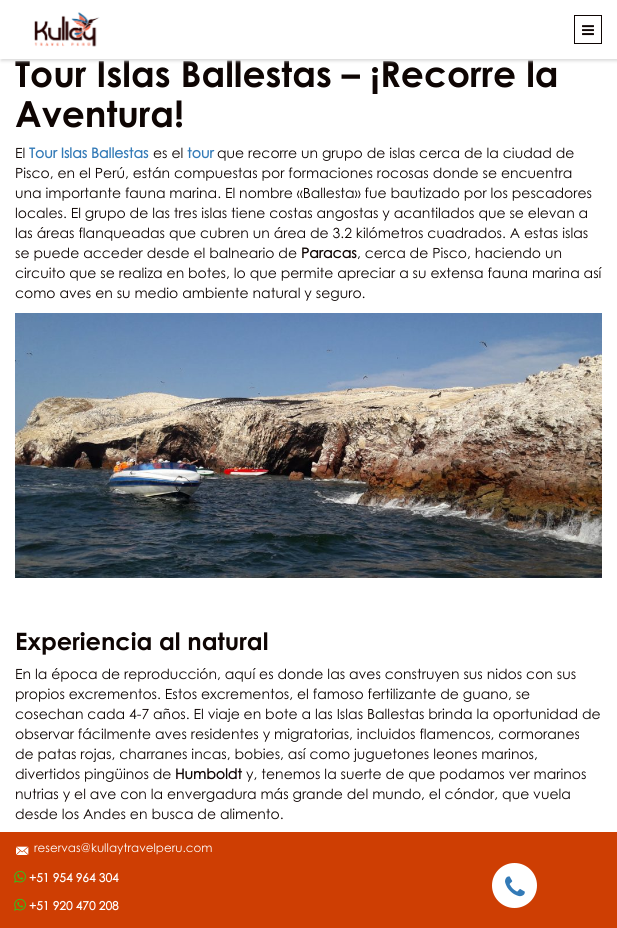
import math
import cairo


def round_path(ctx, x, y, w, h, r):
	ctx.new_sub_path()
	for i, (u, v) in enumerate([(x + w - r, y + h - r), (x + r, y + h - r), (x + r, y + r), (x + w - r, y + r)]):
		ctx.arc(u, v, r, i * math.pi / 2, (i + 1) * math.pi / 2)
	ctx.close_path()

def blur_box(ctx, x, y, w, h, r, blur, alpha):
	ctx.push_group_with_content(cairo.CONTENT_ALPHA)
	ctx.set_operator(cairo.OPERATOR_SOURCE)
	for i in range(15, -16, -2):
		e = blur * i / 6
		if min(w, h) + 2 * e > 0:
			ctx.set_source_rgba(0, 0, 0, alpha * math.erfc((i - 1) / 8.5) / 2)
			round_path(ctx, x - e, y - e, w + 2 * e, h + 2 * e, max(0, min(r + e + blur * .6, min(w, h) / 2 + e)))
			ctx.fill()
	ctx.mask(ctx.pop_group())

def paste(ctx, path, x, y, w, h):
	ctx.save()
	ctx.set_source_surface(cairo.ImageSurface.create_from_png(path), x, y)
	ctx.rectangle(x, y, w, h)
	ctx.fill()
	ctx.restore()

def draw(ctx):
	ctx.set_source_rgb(1, 1, 1)
	ctx.paint()
	ctx.select_font_face('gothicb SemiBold')
	ctx.set_font_size(36)
	ctx.set_source_rgb(0.055, 0.02, 0.012)
	ctx.move_to(15, 87)
	ctx.show_text('Tour Islas Ballestas – ¡Recorre la')
	ctx.move_to(15, 127)
	ctx.show_text('Aventura!')
	ctx.select_font_face('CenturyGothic')
	ctx.set_font_size(14)
	ctx.move_to(15, 158)
	ctx.show_text('El')
	ctx.select_font_face('CenturyGothic', cairo.FONT_SLANT_NORMAL, cairo.FONT_WEIGHT_BOLD)
	ctx.set_source_rgb(0.2, 0.478, 0.718)
	ctx.move_to(29, 158)
	ctx.show_text('Tour Islas Ballestas')
	ctx.select_font_face('CenturyGothic')
	ctx.set_source_rgb(0.055, 0.02, 0.012)
	ctx.move_to(153, 158)
	ctx.show_text('es el')
	ctx.select_font_face('CenturyGothic', cairo.FONT_SLANT_NORMAL, cairo.FONT_WEIGHT_BOLD)
	ctx.set_source_rgb(0.2, 0.478, 0.718)
	ctx.move_to(187, 158)
	ctx.show_text('tour')
	ctx.select_font_face('CenturyGothic')
	ctx.set_source_rgb(0.055, 0.02, 0.012)
	for x, y, s in [
		(217, 158, 'que recorre un grupo de islas cerca de la ciudad de'),
		(15, 178, 'Pisco, en el Perú, están compuestas por formaciones rocosas donde se encuentra'),
		(15, 198, 'una importante fauna marina. El nombre «Ballesta» fue bautizado por los pescadores'),
		(15, 218, 'locales. El grupo de las tres islas tiene costas angostas y acantilados que se elevan a'),
		(15, 238, 'las áreas flanqueadas que cubren un área de 3.2 kilómetros cuadrados. A estas islas'),
		(15, 258, 'se puede acceder desde el balneario de'),
	]:
		ctx.move_to(x, y)
		ctx.show_text(s)
	ctx.select_font_face('CenturyGothic', cairo.FONT_SLANT_NORMAL, cairo.FONT_WEIGHT_BOLD)
	ctx.move_to(301, 258)
	ctx.show_text('Paracas')
	ctx.select_font_face('CenturyGothic')
	for x, y, s in [
		(357, 258, ', cerca de Pisco, haciendo un'),
		(15, 278, 'circuito que se realiza en botes, lo que permite apreciar a su extensa fauna marina así'),
		(15, 298, 'como aves en su medio ambiente natural y seguro.'),
	]:
		ctx.move_to(x, y)
		ctx.show_text(s)
	paste(ctx, 'media/1.png', 15, 313, 587, 265)
	ctx.select_font_face('gothicb SemiBold')
	ctx.set_font_size(24)
	ctx.move_to(15, 650)
	ctx.show_text('Experiencia al natural')
	ctx.select_font_face('CenturyGothic')
	ctx.set_font_size(14)
	for x, y, s in [
		(15, 679, 'En la época de reproducción, aquí es donde las aves construyen sus nidos con sus'),
		(15, 699, 'propios excrementos. Estos excrementos, el famoso fertilizante de guano, se'),
		(15, 719, 'cosechan cada 4-7 años. El viaje en bote a las Islas Ballestas brinda la oportunidad de'),
		(15, 739, 'observar fácilmente aves residentes y migratorias, incluidos flamencos, cormoranes'),
		(15, 759, 'de patas rojas, charranes incas, bobies, así como juguetones leones marinos,'),
		(15, 779, 'divertidos pingüinos de'),
	]:
		ctx.move_to(x, y)
		ctx.show_text(s)
	ctx.select_font_face('CenturyGothic', cairo.FONT_SLANT_NORMAL, cairo.FONT_WEIGHT_BOLD)
	ctx.move_to(175, 779)
	ctx.show_text('Humboldt')
	ctx.select_font_face('CenturyGothic')
	for x, y, s in [
		(246, 779, 'y, tenemos la suerte de que podamos ver marinos'),
		(15, 799, 'nutrias y el ave con la envergadura más grande del mundo, el cóndor, que vuela'),
		(15, 819, 'desde los Andes en busca de alimento.'),
	]:
		ctx.move_to(x, y)
		ctx.show_text(s)
	ctx.set_source_rgb(0.863, 0.863, 0.863)
	blur_box(ctx, 1, 2, 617, 59, 0, 1.5, 1)
	ctx.set_source_rgb(1, 1, 1)
	ctx.rectangle(0, 0, 617, 59)
	ctx.fill()
	ctx.rectangle(574.5, 15.5, 27, 28)
	ctx.set_source_rgb(0.055, 0.02, 0.012)
	ctx.set_line_width(1)
	ctx.stroke()
	paste(ctx, 'media/2.png', 582, 25, 12, 11)
	paste(ctx, 'media/3.png', 34, 12, 66, 35)
	ctx.set_source_rgb(0.808, 0.243, 0.012)
	ctx.rectangle(0, 832, 617, 96)
	ctx.fill()
	paste(ctx, 'media/4.png', 16, 846, 13, 9)
	ctx.set_font_size(11.9)
	ctx.set_source_rgb(1, 1, 1)
	ctx.move_to(34, 852)
	ctx.show_text('reservas@kullaytravelperu.com')
	paste(ctx, 'media/5.png', 14, 870, 12, 13)
	ctx.select_font_face('CenturyGothic', cairo.FONT_SLANT_NORMAL, cairo.FONT_WEIGHT_BOLD)
	ctx.move_to(29, 882)
	ctx.show_text('+51 954 964 304')
	paste(ctx, 'media/5.png', 14, 898, 12, 13)
	ctx.move_to(29, 910)
	ctx.show_text('+51 920 470 208')
	ctx.new_path()
	ctx.arc(514.5, 885.5, 22.5, 0, 2 * math.pi)
	ctx.fill()
	paste(ctx, 'media/6.png', 505, 876, 20, 21)


surface = cairo.ImageSurface(cairo.FORMAT_RGB24, 617, 928)
ctx = cairo.Context(surface)
options = cairo.FontOptions()
options.set_hint_metrics(cairo.HINT_METRICS_OFF)
options.set_hint_style(cairo.HINT_STYLE_NONE)
ctx.set_font_options(options)
ctx.set_miter_limit(4)
draw(ctx)
surface.write_to_png('image.png')
